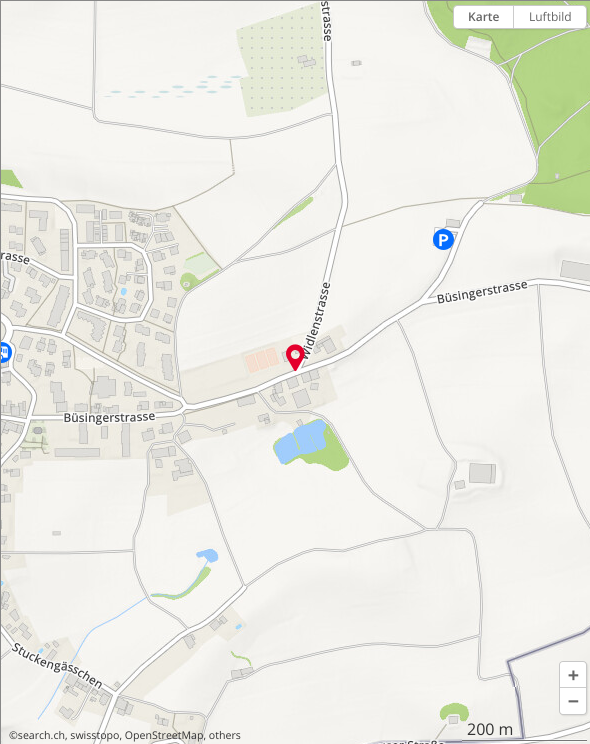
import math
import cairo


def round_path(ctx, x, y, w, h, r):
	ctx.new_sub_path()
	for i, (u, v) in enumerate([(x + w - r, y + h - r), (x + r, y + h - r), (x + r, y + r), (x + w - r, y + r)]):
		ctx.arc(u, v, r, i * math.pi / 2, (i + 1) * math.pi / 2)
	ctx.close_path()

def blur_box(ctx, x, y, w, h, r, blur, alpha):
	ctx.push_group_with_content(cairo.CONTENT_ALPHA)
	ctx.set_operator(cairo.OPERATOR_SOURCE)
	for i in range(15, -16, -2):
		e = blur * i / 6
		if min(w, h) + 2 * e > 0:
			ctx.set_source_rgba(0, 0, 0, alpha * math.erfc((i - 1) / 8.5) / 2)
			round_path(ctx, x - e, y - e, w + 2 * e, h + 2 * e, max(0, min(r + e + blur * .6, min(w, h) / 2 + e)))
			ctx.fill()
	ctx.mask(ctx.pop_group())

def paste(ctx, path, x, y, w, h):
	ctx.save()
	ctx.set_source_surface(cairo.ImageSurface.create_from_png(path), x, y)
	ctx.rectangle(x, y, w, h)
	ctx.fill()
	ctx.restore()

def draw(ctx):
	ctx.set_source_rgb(1, 1, 1)
	ctx.paint()
	ctx.rectangle(0.5, 0.5, 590, 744)
	ctx.set_source_rgb(0.533, 0.533, 0.533)
	ctx.set_line_width(1)
	ctx.stroke()
	ctx.set_source_rgb(0.957, 0.953, 0.937)
	ctx.rectangle(1, 1, 2, 26)
	ctx.fill()
	paste(ctx, 'media/1.png', 3, 1, 512, 26)
	paste(ctx, 'media/2.png', 515, 1, 75, 26)
	paste(ctx, 'media/3.png', 1, 27, 2, 512)
	paste(ctx, 'media/4.png', 3, 27, 512, 512)
	paste(ctx, 'media/5.png', 515, 27, 75, 512)
	paste(ctx, 'media/6.png', 1, 539, 2, 205)
	paste(ctx, 'media/7.png', 3, 539, 512, 205)
	paste(ctx, 'media/8.png', 515, 539, 75, 205)
	paste(ctx, 'media/9.png', 319, 1, 13, 26)
	paste(ctx, 'media/10.png', 1, 249, 2, 131)
	paste(ctx, 'media/11.png', 3, 27, 512, 400)
	paste(ctx, 'media/12.png', 515, 280, 14, 12)
	paste(ctx, 'media/13.png', 9, 640, 437, 104)
	paste(ctx, 'media/14.png', 286, 344, 19, 28)
	ctx.set_source_rgb(0, 0, 0)
	blur_box(ctx, 454, 6, 134, 24, 4, 0.5, 0.08)
	round_path(ctx, 453.5, 5.5, 133, 23, 3.5)
	ctx.set_source_rgb(0.784, 0.784, 0.784)
	ctx.stroke()
	ctx.set_source_rgb(1, 1, 1)
	ctx.new_path()
	ctx.move_to(457, 6)
	ctx.line_to(514, 6)
	ctx.line_to(514, 28)
	ctx.line_to(457, 28)
	ctx.curve_to(455.5, 28, 454, 26.5, 454, 25)
	ctx.line_to(454, 9)
	ctx.curve_to(454, 7.5, 455.5, 6, 457, 6)
	ctx.close_path()
	ctx.fill()
	ctx.set_source_rgb(0.8, 0.8, 0.8)
	ctx.rectangle(513, 6, 1, 22)
	ctx.fill()
	ctx.select_font_face('Open Sans SemiBold')
	ctx.set_font_size(12)
	ctx.set_source_rgb(0.4, 0.4, 0.4)
	ctx.move_to(468, 21)
	ctx.show_text('Karte')
	ctx.set_source_rgb(1, 1, 1)
	ctx.new_path()
	ctx.move_to(514, 6)
	ctx.line_to(583, 6)
	ctx.curve_to(584.5, 6, 586, 7.5, 586, 9)
	ctx.line_to(586, 25)
	ctx.curve_to(586, 26.5, 584.5, 28, 583, 28)
	ctx.line_to(514, 28)
	ctx.close_path()
	ctx.fill()
	ctx.select_font_face('Open Sans')
	ctx.set_source_rgb(0.4, 0.4, 0.4)
	ctx.move_to(529, 21)
	ctx.show_text('Luftbild')
	ctx.set_font_size(10.6)
	ctx.set_source_rgb(0.2, 0.2, 0.2)
	ctx.move_to(9, 739)
	ctx.show_text('©search.ch, swisstopo, OpenStreetMap, others')
	ctx.set_source_rgb(0, 0, 0)
	blur_box(ctx, 560, 662, 28, 54, 4, 0.5, 0.08)
	round_path(ctx, 559.5, 661.5, 27, 53, 3.5)
	ctx.set_source_rgb(0.784, 0.784, 0.784)
	ctx.stroke()
	ctx.set_source_rgb(1, 1, 1)
	ctx.new_path()
	ctx.move_to(563, 662)
	ctx.line_to(583, 662)
	ctx.curve_to(584.5, 662, 586, 663.5, 586, 665)
	ctx.line_to(586, 688)
	ctx.line_to(560, 688)
	ctx.line_to(560, 665)
	ctx.curve_to(560, 663.5, 561.5, 662, 563, 662)
	ctx.close_path()
	ctx.fill()
	ctx.set_source_rgb(0.8, 0.8, 0.8)
	ctx.rectangle(560, 687, 26, 1)
	ctx.fill()
	ctx.select_font_face('DejaVu Sans Mono', cairo.FONT_SLANT_NORMAL, cairo.FONT_WEIGHT_BOLD)
	ctx.set_font_size(18)
	ctx.set_source_rgb(0.4, 0.4, 0.4)
	ctx.move_to(568, 681)
	ctx.show_text('+')
	ctx.set_source_rgb(1, 1, 1)
	ctx.new_path()
	ctx.move_to(560, 688)
	ctx.line_to(586, 688)
	ctx.line_to(586, 711)
	ctx.curve_to(586, 712.5, 584.5, 714, 583, 714)
	ctx.line_to(563, 714)
	ctx.curve_to(561.5, 714, 560, 712.5, 560, 711)
	ctx.close_path()
	ctx.fill()
	ctx.set_source_rgb(0.4, 0.4, 0.4)
	ctx.move_to(568, 707)
	ctx.show_text('−')
	ctx.set_source_rgba(1, 1, 1, 0.5)
	ctx.rectangle(462, 741, 125, 1)
	ctx.fill()
	ctx.rectangle(462, 739, 125, 1)
	ctx.fill()
	ctx.set_source_rgb(0.467, 0.467, 0.467)
	ctx.rectangle(462, 740, 125, 1)
	ctx.fill()
	ctx.select_font_face('Open Sans')
	ctx.set_font_size(16)
	ctx.set_source_rgb(0.2, 0.2, 0.2)
	ctx.move_to(467, 735)
	ctx.show_text('200 m')


surface = cairo.ImageSurface(cairo.FORMAT_RGB24, 590, 744)
ctx = cairo.Context(surface)
options = cairo.FontOptions()
options.set_hint_metrics(cairo.HINT_METRICS_OFF)
options.set_hint_style(cairo.HINT_STYLE_NONE)
ctx.set_font_options(options)
ctx.set_miter_limit(4)
draw(ctx)
surface.write_to_png('image.png')
